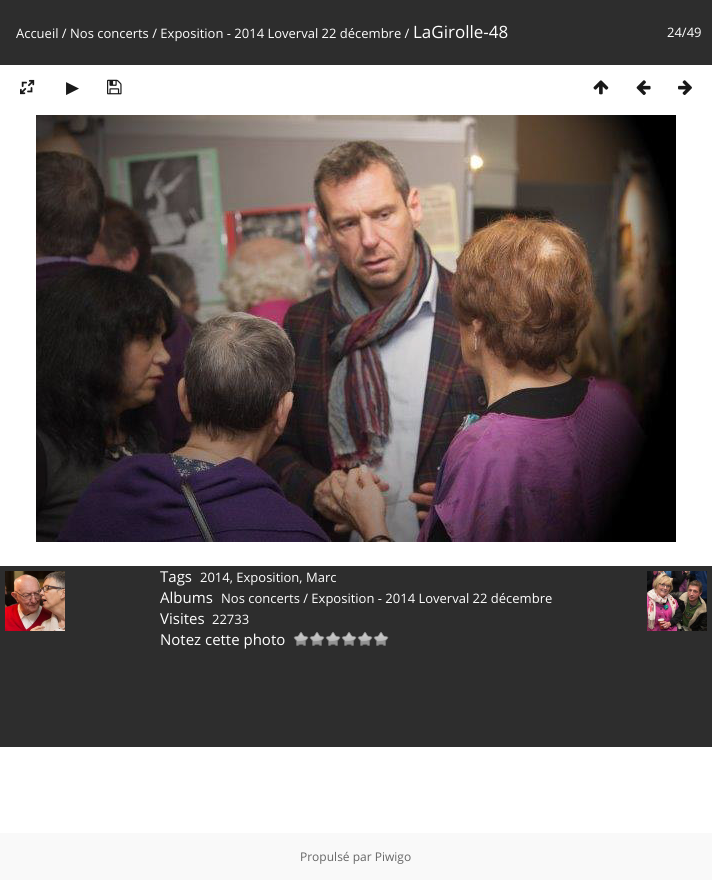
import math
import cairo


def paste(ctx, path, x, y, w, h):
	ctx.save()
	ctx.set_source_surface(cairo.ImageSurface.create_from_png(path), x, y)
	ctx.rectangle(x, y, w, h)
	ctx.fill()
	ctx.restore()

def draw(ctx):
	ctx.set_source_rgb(1, 1, 1)
	ctx.paint()
	ctx.set_source_rgb(0.176, 0.176, 0.176)
	ctx.rectangle(0, 0, 712, 65)
	ctx.fill()
	ctx.select_font_face('Open Sans')
	ctx.set_font_size(13)
	ctx.set_source_rgb(1, 1, 1)
	ctx.move_to(16, 38)
	ctx.show_text('Accueil / Nos concerts / Exposition - 2014 Loverval 22 décembre /')
	ctx.set_font_size(17)
	ctx.move_to(413, 38)
	ctx.show_text('LaGirolle-48')
	ctx.set_font_size(13)
	ctx.move_to(667, 37)
	ctx.show_text('24/49')
	paste(ctx, 'media/1.png', 20, 79, 15, 16)
	ctx.select_font_face('DejaVu Sans')
	ctx.set_font_size(17)
	ctx.set_source_rgb(0.102, 0.102, 0.102)
	ctx.move_to(66, 93)
	ctx.show_text('▶')
	paste(ctx, 'media/2.png', 107, 79, 15, 16)
	paste(ctx, 'media/3.png', 593, 80, 16, 15)
	paste(ctx, 'media/4.png', 636, 80, 15, 15)
	paste(ctx, 'media/5.png', 678, 80, 14, 15)
	paste(ctx, 'media/6.png', 36, 115, 640, 427)
	ctx.set_source_rgb(0.176, 0.176, 0.176)
	ctx.rectangle(0, 566, 712, 181)
	ctx.fill()
	paste(ctx, 'media/7.png', 5, 571, 60, 60)
	paste(ctx, 'media/8.png', 647, 571, 60, 60)
	ctx.select_font_face('Open Sans')
	ctx.set_font_size(15)
	ctx.set_source_rgb(1, 1, 1)
	ctx.move_to(160, 582)
	ctx.show_text('Tags')
	ctx.set_font_size(13)
	ctx.move_to(200, 582)
	ctx.show_text('2014, Exposition, Marc')
	ctx.set_font_size(15)
	ctx.move_to(160, 603)
	ctx.show_text('Albums')
	ctx.set_font_size(13)
	ctx.move_to(221, 603)
	ctx.show_text('Nos concerts / Exposition - 2014 Loverval 22 décembre')
	ctx.set_font_size(15)
	ctx.move_to(160, 624)
	ctx.show_text('Visites')
	ctx.set_font_size(13)
	ctx.move_to(212, 624)
	ctx.show_text('22733')
	ctx.set_font_size(15)
	ctx.move_to(160, 645)
	ctx.show_text('Notez cette photo')
	paste(ctx, 'media/9.png', 293, 632, 16, 14)
	paste(ctx, 'media/9.png', 309, 632, 16, 14)
	paste(ctx, 'media/9.png', 325, 632, 16, 14)
	paste(ctx, 'media/9.png', 341, 632, 16, 14)
	paste(ctx, 'media/9.png', 357, 632, 16, 14)
	paste(ctx, 'media/9.png', 373, 632, 16, 14)
	ctx.set_source_rgb(0.976, 0.976, 0.976)
	ctx.rectangle(0, 833, 712, 47)
	ctx.fill()
	ctx.set_font_size(12)
	ctx.set_source_rgb(0.4, 0.4, 0.4)
	ctx.move_to(300, 861)
	ctx.show_text('Propulsé par Piwigo')


surface = cairo.ImageSurface(cairo.FORMAT_RGB24, 712, 880)
ctx = cairo.Context(surface)
options = cairo.FontOptions()
options.set_hint_metrics(cairo.HINT_METRICS_OFF)
options.set_hint_style(cairo.HINT_STYLE_NONE)
ctx.set_font_options(options)
ctx.set_miter_limit(4)
draw(ctx)
surface.write_to_png('image.png')
